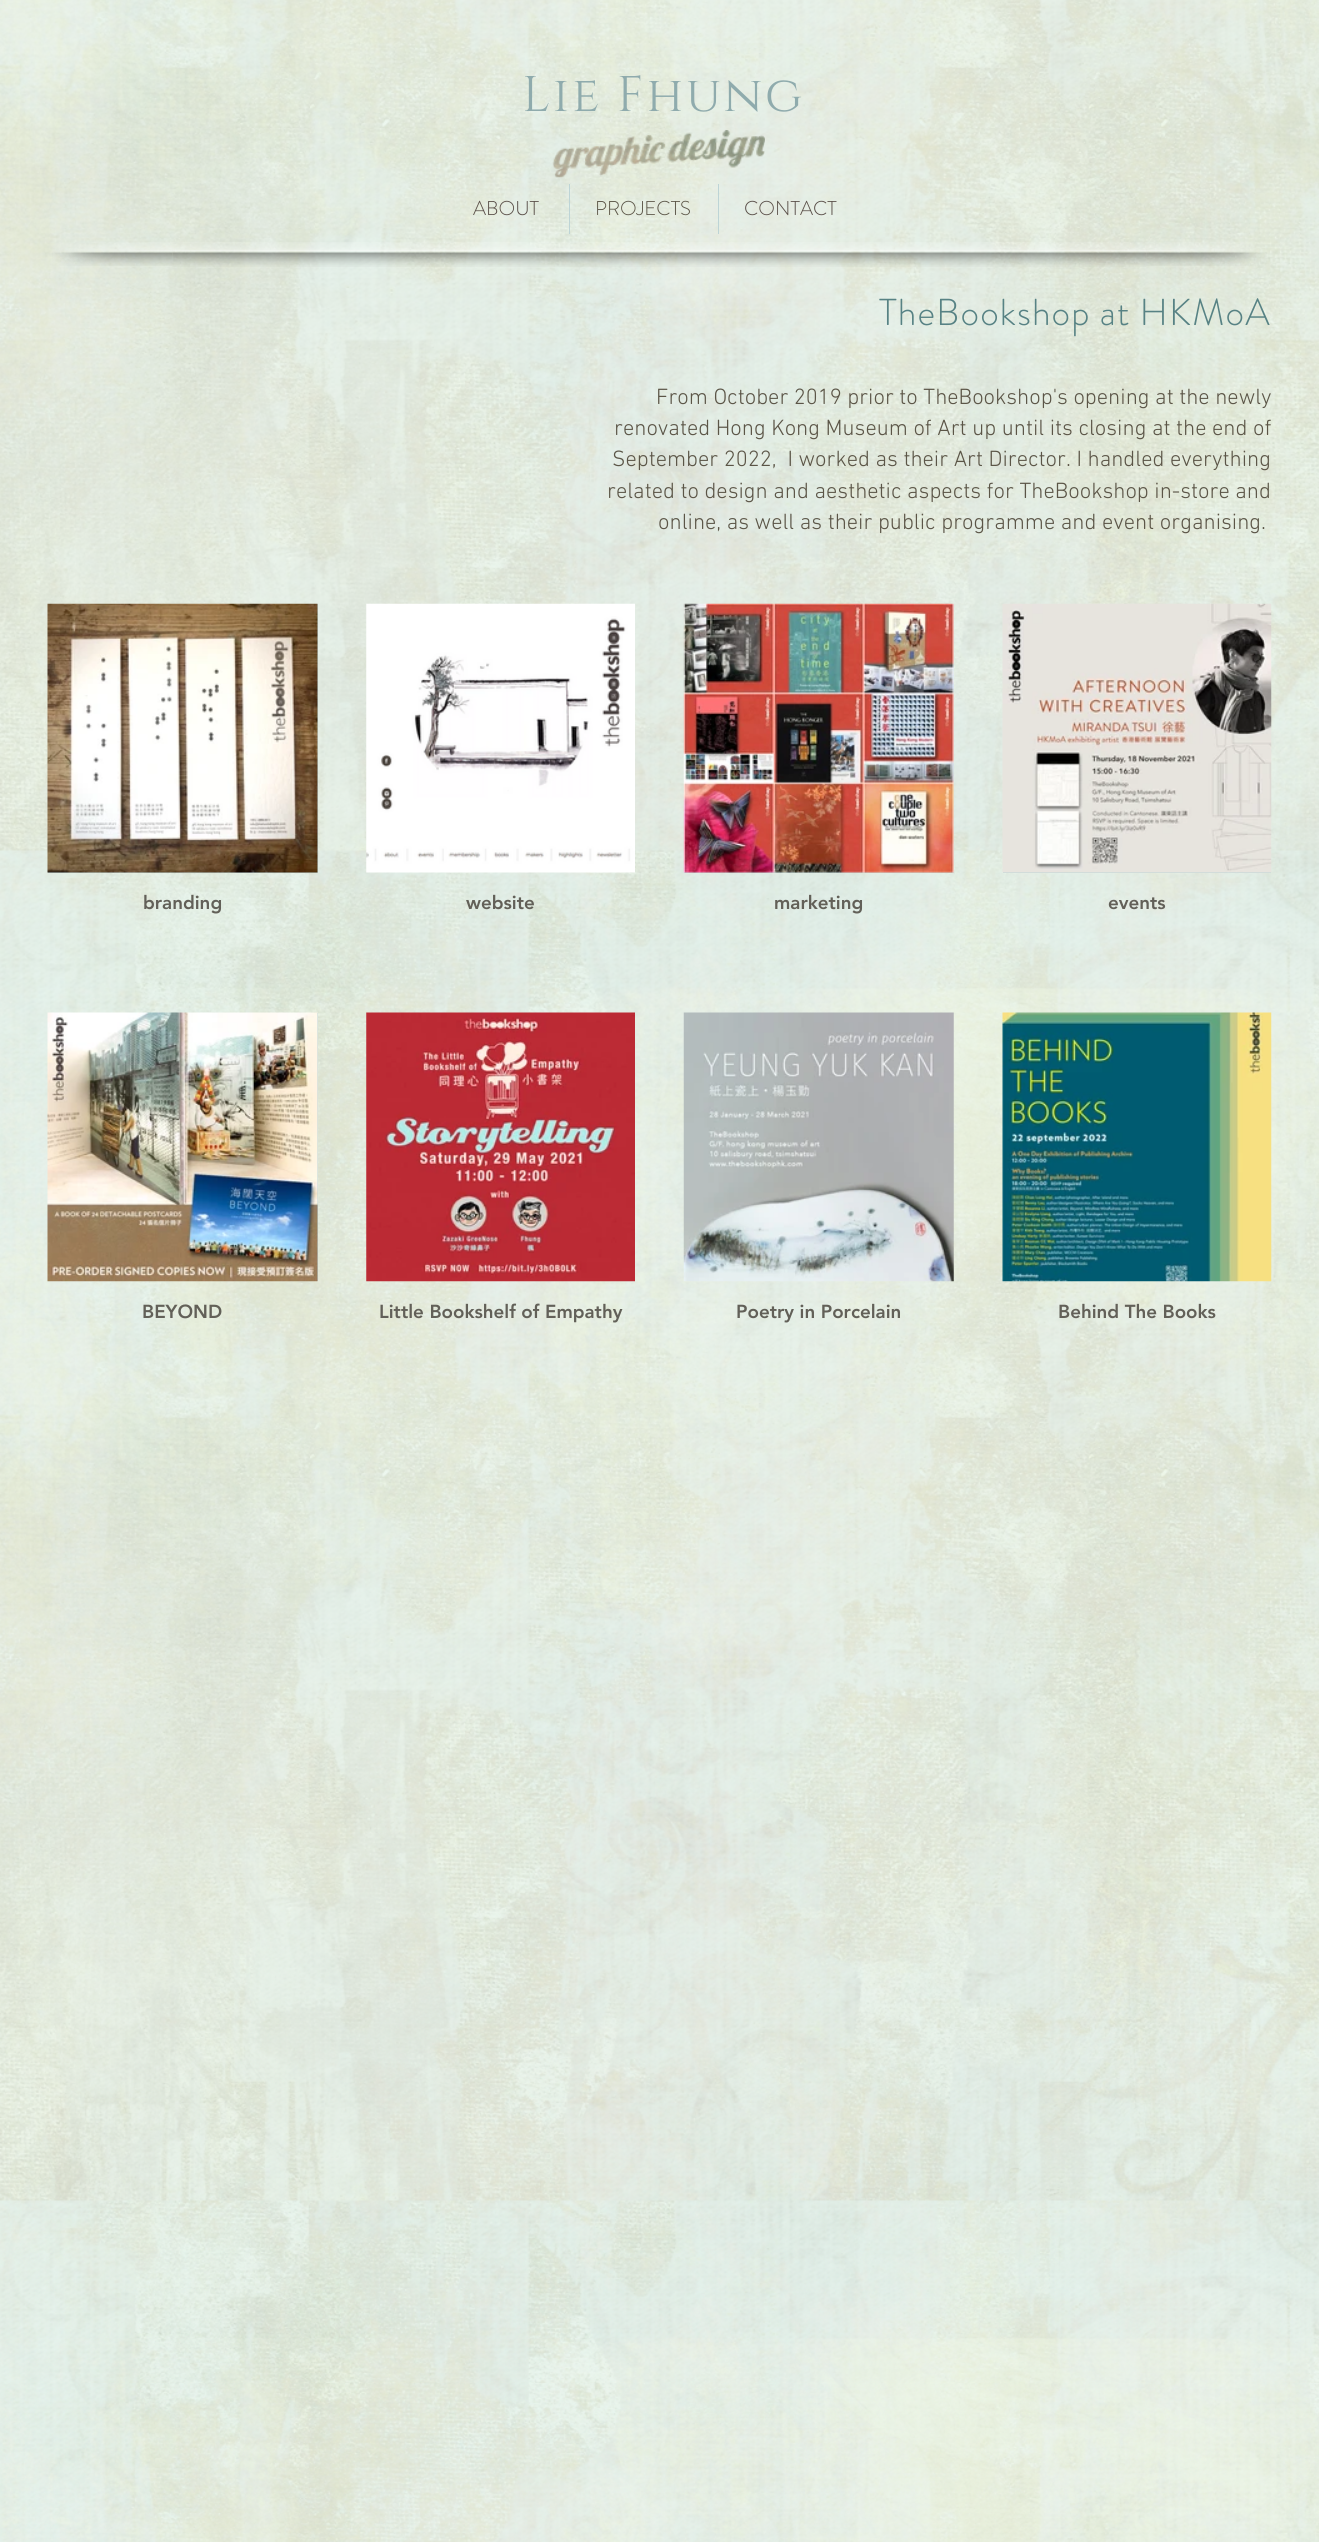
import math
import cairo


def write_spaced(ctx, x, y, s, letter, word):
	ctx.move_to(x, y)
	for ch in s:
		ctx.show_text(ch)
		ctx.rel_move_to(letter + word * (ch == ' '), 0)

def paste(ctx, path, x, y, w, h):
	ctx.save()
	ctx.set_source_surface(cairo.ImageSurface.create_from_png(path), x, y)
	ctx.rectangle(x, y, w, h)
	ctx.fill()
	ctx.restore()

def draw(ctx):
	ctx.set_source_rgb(0.914, 0.961, 0.941)
	ctx.paint()
	paste(ctx, 'media/1.png', 0, 0, 1319, 2542)
	ctx.select_font_face('Cinzel')
	ctx.set_font_size(50)
	ctx.set_source_rgb(0.561, 0.671, 0.678)
	write_spaced(ctx, 522, 111, 'Lie Fhung', 2.5, 0)
	paste(ctx, 'media/2.png', 552, 130, 213, 48)
	ctx.select_font_face('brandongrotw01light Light')
	ctx.set_font_size(20)
	ctx.set_source_rgb(0.349, 0.306, 0.282)
	ctx.move_to(473, 215)
	ctx.show_text('ABOUT')
	ctx.set_source_rgb(0.741, 0.831, 0.839)
	ctx.rectangle(569, 184, 1, 50)
	ctx.fill()
	ctx.set_source_rgb(0.357, 0.333, 0.278)
	ctx.move_to(595, 215)
	ctx.show_text('PROJECTS')
	ctx.set_source_rgb(0.741, 0.831, 0.839)
	ctx.rectangle(718, 184, 1, 50)
	ctx.fill()
	ctx.set_source_rgb(0.349, 0.306, 0.282)
	ctx.move_to(744, 215)
	ctx.show_text('CONTACT')
	paste(ctx, 'media/4.png', 172, 242, 975, 25)
	paste(ctx, 'media/3.png', 52, 242, 121, 24)
	paste(ctx, 'media/5.png', 1146, 242, 121, 24)
	ctx.set_font_size(37.5)
	ctx.set_source_rgb(0.341, 0.51, 0.518)
	write_spaced(ctx, 879, 325, 'TheBookshop at HKMoA', 1.1, 0)
	ctx.select_font_face('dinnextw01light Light')
	ctx.set_font_size(22.5)
	ctx.set_source_rgb(0.357, 0.333, 0.278)
	for x, y, s in [
		(656, 404, 'From October 2019 prior to TheBookshop\'s opening at the newly'),
		(614, 435, 'renovated Hong Kong Museum of Art up until its closing at the end of'),
		(612, 466, 'September 2022,  I worked as their Art Director. I handled everything'),
		(607, 498, 'related to design and aesthetic aspects for TheBookshop in-store and'),
		(658, 529, 'online, as well as their public programme and event organising.'),
	]:
		ctx.move_to(x, y)
		ctx.show_text(s)
	ctx.set_source_rgb(0.741, 0.831, 0.839)
	ctx.rectangle(48, 604, 270, 269)
	ctx.fill()
	paste(ctx, 'media/6.png', 47, 603, 271, 270)
	ctx.select_font_face('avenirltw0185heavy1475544 Black')
	ctx.set_font_size(18.75)
	ctx.set_source_rgb(0.384, 0.376, 0.345)
	ctx.move_to(143, 909)
	ctx.show_text('branding')
	paste(ctx, 'media/7.png', 366, 603, 269, 270)
	ctx.move_to(466, 909)
	ctx.show_text('website')
	ctx.set_source_rgb(0.741, 0.831, 0.839)
	ctx.rectangle(684, 604, 270, 269)
	ctx.fill()
	paste(ctx, 'media/8.png', 683, 603, 271, 270)
	ctx.set_source_rgb(0.384, 0.376, 0.345)
	ctx.move_to(774, 909)
	ctx.show_text('marketing')
	ctx.set_source_rgb(0.741, 0.831, 0.839)
	ctx.rectangle(1003, 872, 268, 1)
	ctx.fill()
	paste(ctx, 'media/9.png', 1002, 603, 270, 270)
	ctx.set_source_rgb(0.384, 0.376, 0.345)
	ctx.move_to(1108, 909)
	ctx.show_text('events')
	ctx.set_source_rgb(0.741, 0.831, 0.839)
	ctx.rectangle(317, 1013, 1, 268)
	ctx.fill()
	paste(ctx, 'media/10.png', 47, 1012, 271, 270)
	ctx.set_source_rgb(0.384, 0.376, 0.345)
	ctx.move_to(142, 1318)
	ctx.show_text('BEYOND')
	paste(ctx, 'media/11.png', 366, 1012, 269, 270)
	ctx.move_to(379, 1318)
	ctx.show_text('Little Bookshelf of Empathy')
	paste(ctx, 'media/12.png', 683, 1012, 271, 270)
	ctx.move_to(736, 1318)
	ctx.show_text('Poetry in Porcelain')
	paste(ctx, 'media/13.png', 1002, 1012, 270, 270)
	ctx.move_to(1058, 1318)
	ctx.show_text('Behind The Books')


surface = cairo.ImageSurface(cairo.FORMAT_RGB24, 1319, 2542)
ctx = cairo.Context(surface)
options = cairo.FontOptions()
options.set_hint_metrics(cairo.HINT_METRICS_OFF)
options.set_hint_style(cairo.HINT_STYLE_NONE)
ctx.set_font_options(options)
ctx.set_miter_limit(4)
draw(ctx)
surface.write_to_png('image.png')
